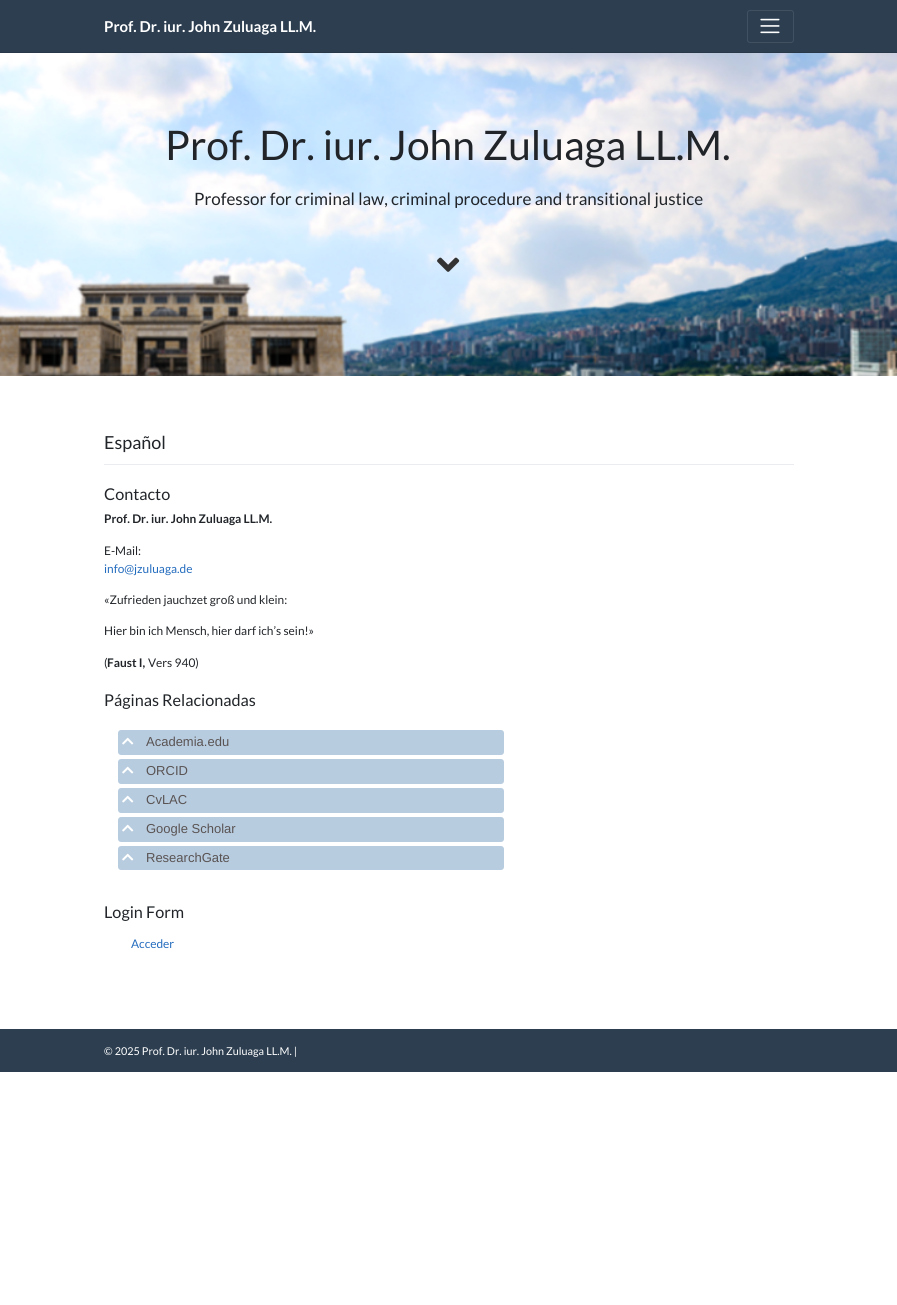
import math
import cairo


def round_path(ctx, x, y, w, h, r):
	ctx.new_sub_path()
	for i, (u, v) in enumerate([(x + w - r, y + h - r), (x + r, y + h - r), (x + r, y + r), (x + w - r, y + r)]):
		ctx.arc(u, v, r, i * math.pi / 2, (i + 1) * math.pi / 2)
	ctx.close_path()

def paste(ctx, path, x, y, w, h):
	ctx.save()
	ctx.set_source_surface(cairo.ImageSurface.create_from_png(path), x, y)
	ctx.rectangle(x, y, w, h)
	ctx.fill()
	ctx.restore()

def draw(ctx):
	ctx.set_source_rgb(1, 1, 1)
	ctx.paint()
	ctx.set_source_rgb(0.173, 0.243, 0.314)
	ctx.rectangle(0, 0, 897, 52)
	ctx.fill()
	ctx.set_source_rgb(0.157, 0.22, 0.282)
	ctx.rectangle(0, 52, 897, 1)
	ctx.fill()
	ctx.select_font_face('Lato', cairo.FONT_SLANT_NORMAL, cairo.FONT_WEIGHT_BOLD)
	ctx.set_font_size(15)
	ctx.set_source_rgb(1, 1, 1)
	ctx.move_to(104, 32)
	ctx.show_text('Prof. Dr. iur. John Zuluaga LL.M.')
	round_path(ctx, 747.5, 10.5, 46, 32, 2.5)
	ctx.set_source_rgb(0.255, 0.318, 0.384)
	ctx.set_line_width(1)
	ctx.stroke()
	paste(ctx, 'media/1.png', 760, 18, 20, 16)
	paste(ctx, 'media/2.png', 0, 53, 897, 323)
	ctx.select_font_face('Lato')
	ctx.set_font_size(40.75)
	ctx.set_source_rgb(0.129, 0.145, 0.161)
	ctx.move_to(165, 160)
	ctx.show_text('Prof. Dr. iur. John Zuluaga LL.M.')
	ctx.set_font_size(17)
	ctx.move_to(194, 205)
	ctx.show_text('Professor for criminal law, criminal procedure and transitional justice')
	paste(ctx, 'media/3.png', 437, 257, 23, 15)
	ctx.set_source_rgb(0.918, 0.925, 0.937)
	ctx.rectangle(104, 464, 690, 1)
	ctx.fill()
	ctx.set_font_size(18)
	ctx.set_source_rgb(0.129, 0.145, 0.161)
	ctx.move_to(104, 449)
	ctx.show_text('Español')
	ctx.set_font_size(16.25)
	ctx.move_to(104, 500)
	ctx.show_text('Contacto')
	ctx.select_font_face('Lato', cairo.FONT_SLANT_NORMAL, cairo.FONT_WEIGHT_BOLD)
	ctx.set_font_size(11.9)
	ctx.move_to(104, 523)
	ctx.show_text('Prof. Dr. iur. John Zuluaga LL.M.')
	ctx.select_font_face('Lato')
	ctx.move_to(104, 555)
	ctx.show_text('E-Mail:')
	ctx.set_source_rgb(0.141, 0.424, 0.745)
	ctx.move_to(104, 573)
	ctx.show_text('info@jzuluaga.de')
	ctx.set_source_rgb(0.129, 0.145, 0.161)
	for x, y, s in [
		(104, 604, '«Zufrieden jauchzet groß und klein:'),
		(104, 635, 'Hier bin ich Mensch, hier darf ich’s sein!»'),
		(104, 667, '('),
	]:
		ctx.move_to(x, y)
		ctx.show_text(s)
	ctx.select_font_face('Lato', cairo.FONT_SLANT_NORMAL, cairo.FONT_WEIGHT_BOLD)
	ctx.move_to(107, 667)
	ctx.show_text('Faust I,')
	ctx.select_font_face('Lato')
	ctx.move_to(148, 667)
	ctx.show_text('Vers 940)')
	ctx.set_font_size(16.25)
	ctx.move_to(104, 706)
	ctx.show_text('Páginas Relacionadas')
	ctx.set_source_rgb(0.722, 0.8, 0.875)
	round_path(ctx, 118, 730, 386, 25, 3)
	ctx.fill()
	paste(ctx, 'media/4.png', 122, 737, 12, 8)
	ctx.select_font_face('Liberation Sans')
	ctx.set_font_size(13)
	ctx.set_source_rgb(0.349, 0.325, 0.325)
	ctx.move_to(146, 746)
	ctx.show_text('Academia.edu')
	ctx.set_source_rgb(0.722, 0.8, 0.875)
	round_path(ctx, 118, 759, 386, 25, 3)
	ctx.fill()
	paste(ctx, 'media/4.png', 122, 766, 12, 8)
	ctx.set_source_rgb(0.349, 0.325, 0.325)
	ctx.move_to(146, 775)
	ctx.show_text('ORCID')
	ctx.set_source_rgb(0.722, 0.8, 0.875)
	round_path(ctx, 118, 788, 386, 25, 3)
	ctx.fill()
	paste(ctx, 'media/4.png', 122, 795, 12, 8)
	ctx.set_source_rgb(0.349, 0.325, 0.325)
	ctx.move_to(146, 804)
	ctx.show_text('CvLAC')
	ctx.set_source_rgb(0.722, 0.8, 0.875)
	round_path(ctx, 118, 817, 386, 25, 3)
	ctx.fill()
	paste(ctx, 'media/4.png', 122, 824, 12, 8)
	ctx.set_source_rgb(0.349, 0.325, 0.325)
	ctx.move_to(146, 833)
	ctx.show_text('Google Scholar')
	ctx.set_source_rgb(0.722, 0.8, 0.875)
	round_path(ctx, 118, 846, 386, 24, 3)
	ctx.fill()
	paste(ctx, 'media/4.png', 122, 853, 12, 8)
	ctx.set_source_rgb(0.349, 0.325, 0.325)
	ctx.move_to(146, 862)
	ctx.show_text('ResearchGate')
	ctx.select_font_face('Lato')
	ctx.set_font_size(16.25)
	ctx.set_source_rgb(0.129, 0.145, 0.161)
	ctx.move_to(104, 918)
	ctx.show_text('Login Form')
	ctx.set_font_size(11.9)
	ctx.set_source_rgb(0.141, 0.424, 0.745)
	ctx.move_to(131, 948)
	ctx.show_text('Acceder')
	ctx.set_source_rgb(0.173, 0.243, 0.314)
	ctx.rectangle(0, 1029, 897, 43)
	ctx.fill()
	ctx.set_font_size(10.8)
	ctx.set_source_rgb(1, 1, 1)
	ctx.move_to(104, 1055)
	ctx.show_text('© 2025 Prof. Dr. iur. John Zuluaga LL.M. |')


surface = cairo.ImageSurface(cairo.FORMAT_RGB24, 897, 1305)
ctx = cairo.Context(surface)
options = cairo.FontOptions()
options.set_hint_metrics(cairo.HINT_METRICS_OFF)
options.set_hint_style(cairo.HINT_STYLE_NONE)
ctx.set_font_options(options)
ctx.set_miter_limit(4)
draw(ctx)
surface.write_to_png('image.png')
